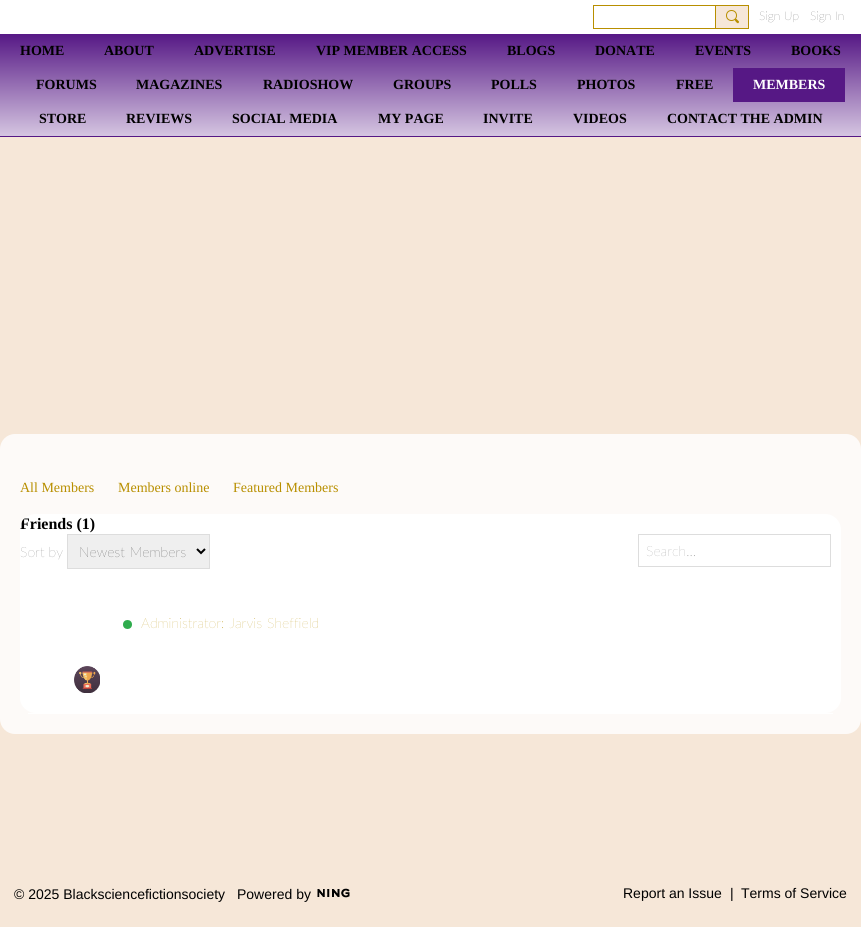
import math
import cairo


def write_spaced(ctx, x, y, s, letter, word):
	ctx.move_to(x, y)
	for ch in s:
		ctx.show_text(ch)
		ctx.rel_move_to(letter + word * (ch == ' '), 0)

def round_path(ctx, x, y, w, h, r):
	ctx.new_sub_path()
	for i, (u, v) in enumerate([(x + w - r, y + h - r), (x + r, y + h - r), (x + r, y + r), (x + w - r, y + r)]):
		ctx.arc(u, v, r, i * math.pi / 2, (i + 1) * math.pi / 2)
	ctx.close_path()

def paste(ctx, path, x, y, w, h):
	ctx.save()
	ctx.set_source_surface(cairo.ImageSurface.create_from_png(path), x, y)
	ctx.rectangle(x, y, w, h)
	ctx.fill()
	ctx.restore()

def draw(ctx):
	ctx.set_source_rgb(0.961, 0.906, 0.847)
	ctx.paint()
	ctx.set_source_rgb(1, 1, 1)
	ctx.rectangle(0, 0, 861, 34)
	ctx.fill()
	ctx.rectangle(593.5, 5.5, 122, 23)
	ctx.set_source_rgb(0.722, 0.561, 0)
	ctx.set_line_width(1)
	ctx.stroke()
	ctx.set_source_rgb(0.961, 0.906, 0.847)
	ctx.rectangle(715.5, 5.5, 33, 23)
	ctx.fill_preserve()
	ctx.set_source_rgb(0.722, 0.561, 0)
	ctx.stroke()
	ctx.arc(731.5, 15.5, 5, 0, 2 * math.pi)
	ctx.stroke()
	ctx.new_path()
	ctx.move_to(736.5, 19)
	ctx.line_to(739, 21.5)
	ctx.curve_to(739, 22, 739, 22.5, 738.5, 23)
	ctx.curve_to(737.5, 24, 735.5, 21.5, 735, 20.5)
	ctx.curve_to(734, 19.5, 735.5, 18.5, 736.5, 19)
	ctx.close_path()
	ctx.fill()
	ctx.select_font_face('Lato ExtraLight')
	ctx.set_font_size(12)
	ctx.set_source_rgb(0.122, 0.122, 0.122)
	ctx.move_to(759, 20)
	ctx.show_text('Sign Up')
	ctx.move_to(810, 20)
	ctx.show_text('Sign In')
	gradient = cairo.LinearGradient(431, 34, 431, 136)
	gradient.add_color_stop_rgba(0, 0.337, 0.094, 0.522, 1)
	gradient.add_color_stop_rgba(1, 0.835, 0.773, 0.882, 1)
	ctx.set_source(gradient)
	ctx.rectangle(0, 34, 861, 102)
	ctx.fill()
	ctx.set_source_rgb(0.337, 0.094, 0.522)
	ctx.rectangle(0, 136, 861, 1)
	ctx.fill()
	ctx.select_font_face('Liberation Serif', cairo.FONT_SLANT_NORMAL, cairo.FONT_WEIGHT_BOLD)
	ctx.set_font_size(14)
	ctx.set_source_rgb(0, 0, 0)
	for x, y, s in [
		(20, 55, 'HOME'),
		(104, 55, 'ABOUT'),
		(194, 55, 'ADVERTISE'),
		(316, 55, 'VIP MEMBER ACCESS'),
		(507, 55, 'BLOGS'),
		(595, 55, 'DONATE'),
		(695, 55, 'EVENTS'),
		(791, 55, 'BOOKS'),
		(36, 89, 'FORUMS'),
		(136, 89, 'MAGAZINES'),
		(263, 89, 'RADIOSHOW'),
		(393, 89, 'GROUPS'),
		(491, 89, 'POLLS'),
		(577, 89, 'PHOTOS'),
		(676, 89, 'FREE'),
	]:
		ctx.move_to(x, y)
		ctx.show_text(s)
	ctx.set_source_rgb(0.337, 0.094, 0.522)
	ctx.rectangle(733, 68, 112, 34)
	ctx.fill()
	ctx.set_source_rgb(1, 1, 1)
	ctx.move_to(753, 89)
	ctx.show_text('MEMBERS')
	ctx.set_source_rgb(0, 0, 0)
	for x, y, s in [
		(39, 123, 'STORE'),
		(126, 123, 'REVIEWS'),
		(232, 123, 'SOCIAL MEDIA'),
		(378, 123, 'MY PAGE'),
		(483, 123, 'INVITE'),
		(573, 123, 'VIDEOS'),
		(667, 123, 'CONTACT THE ADMIN'),
	]:
		ctx.move_to(x, y)
		ctx.show_text(s)
	ctx.set_source_rgb(0.992, 0.98, 0.969)
	round_path(ctx, 0, 434, 861, 300, 15)
	ctx.fill()
	ctx.select_font_face('Liberation Serif')
	ctx.set_source_rgb(0.722, 0.561, 0)
	for x, y, s in [
		(20, 492, 'All Members'),
		(118, 492, 'Members online'),
		(233, 492, 'Featured Members'),
	]:
		ctx.move_to(x, y)
		ctx.show_text(s)
	ctx.set_source_rgb(1, 1, 1)
	ctx.new_path()
	ctx.move_to(36, 514)
	ctx.line_to(825, 514)
	ctx.curve_to(834, 514, 841, 521, 841, 530)
	ctx.line_to(841, 698)
	ctx.curve_to(841, 706, 834, 713, 825, 713)
	ctx.line_to(36, 713)
	ctx.curve_to(27, 713, 20, 706, 20, 698)
	ctx.line_to(20, 530)
	ctx.curve_to(20, 521, 27, 514, 36, 514)
	ctx.close_path()
	ctx.fill()
	ctx.rectangle(28, 713, 805, 1)
	ctx.fill()
	ctx.save()
	ctx.new_path()
	ctx.move_to(35, 514)
	ctx.line_to(826, 514)
	ctx.curve_to(834.5, 514, 841, 520.5, 841, 529)
	ctx.line_to(841, 534)
	ctx.line_to(20, 534)
	ctx.line_to(20, 529)
	ctx.curve_to(20, 520.5, 26.5, 514, 35, 514)
	ctx.close_path()
	ctx.clip()
	ctx.select_font_face('Liberation Serif', cairo.FONT_SLANT_NORMAL, cairo.FONT_WEIGHT_BOLD)
	ctx.set_font_size(16)
	ctx.set_source_rgb(0, 0, 0)
	ctx.move_to(20, 529)
	ctx.show_text('Friends (1)')
	ctx.restore()
	ctx.select_font_face('Lato ExtraLight')
	ctx.set_source_rgb(0.341, 0.341, 0.341)
	ctx.move_to(20, 557)
	ctx.show_text('Sort by')
	ctx.set_source_rgb(0.937, 0.937, 0.937)
	ctx.rectangle(67.5, 534.5, 142, 34)
	ctx.fill_preserve()
	ctx.set_source_rgb(0.867, 0.867, 0.867)
	ctx.stroke()
	ctx.new_path()
	ctx.move_to(197, 549)
	ctx.line_to(201, 553)
	ctx.line_to(205, 549)
	ctx.set_source_rgb(0, 0, 0)
	ctx.set_line_width(2)
	ctx.stroke()
	write_spaced(ctx, 79, 557, 'Newest Members', 0, 1)
	ctx.rectangle(638.5, 534.5, 192, 32)
	ctx.set_source_rgb(0.867, 0.867, 0.867)
	ctx.set_line_width(1)
	ctx.stroke()
	ctx.set_source_rgb(0.459, 0.459, 0.459)
	ctx.move_to(646, 556)
	ctx.show_text('Search...')
	ctx.set_source_rgb(0.184, 0.675, 0.302)
	ctx.new_path()
	ctx.arc(127.5, 624.5, 4.5, 0, 2 * math.pi)
	ctx.fill()
	ctx.set_source_rgb(0.722, 0.561, 0)
	write_spaced(ctx, 141, 628, 'Administrator: Jarvis Sheffield', 0, 1)
	paste(ctx, 'media/1.png', 74, 666, 26, 27)
	ctx.select_font_face('Liberation Sans')
	ctx.set_source_rgb(0, 0, 0)
	ctx.move_to(14, 899)
	ctx.show_text('© 2025 Blacksciencefictionsociety')
	ctx.move_to(237, 899)
	ctx.show_text('Powered by')
	paste(ctx, 'media/2.png', 317, 888, 33, 10)
	for x, y, s in [
		(623, 898, 'Report an Issue'),
		(730, 898, '|'),
		(741, 898, 'Terms of Service'),
	]:
		ctx.move_to(x, y)
		ctx.show_text(s)


surface = cairo.ImageSurface(cairo.FORMAT_RGB24, 861, 927)
ctx = cairo.Context(surface)
options = cairo.FontOptions()
options.set_hint_metrics(cairo.HINT_METRICS_OFF)
options.set_hint_style(cairo.HINT_STYLE_NONE)
ctx.set_font_options(options)
ctx.set_miter_limit(4)
draw(ctx)
surface.write_to_png('image.png')
